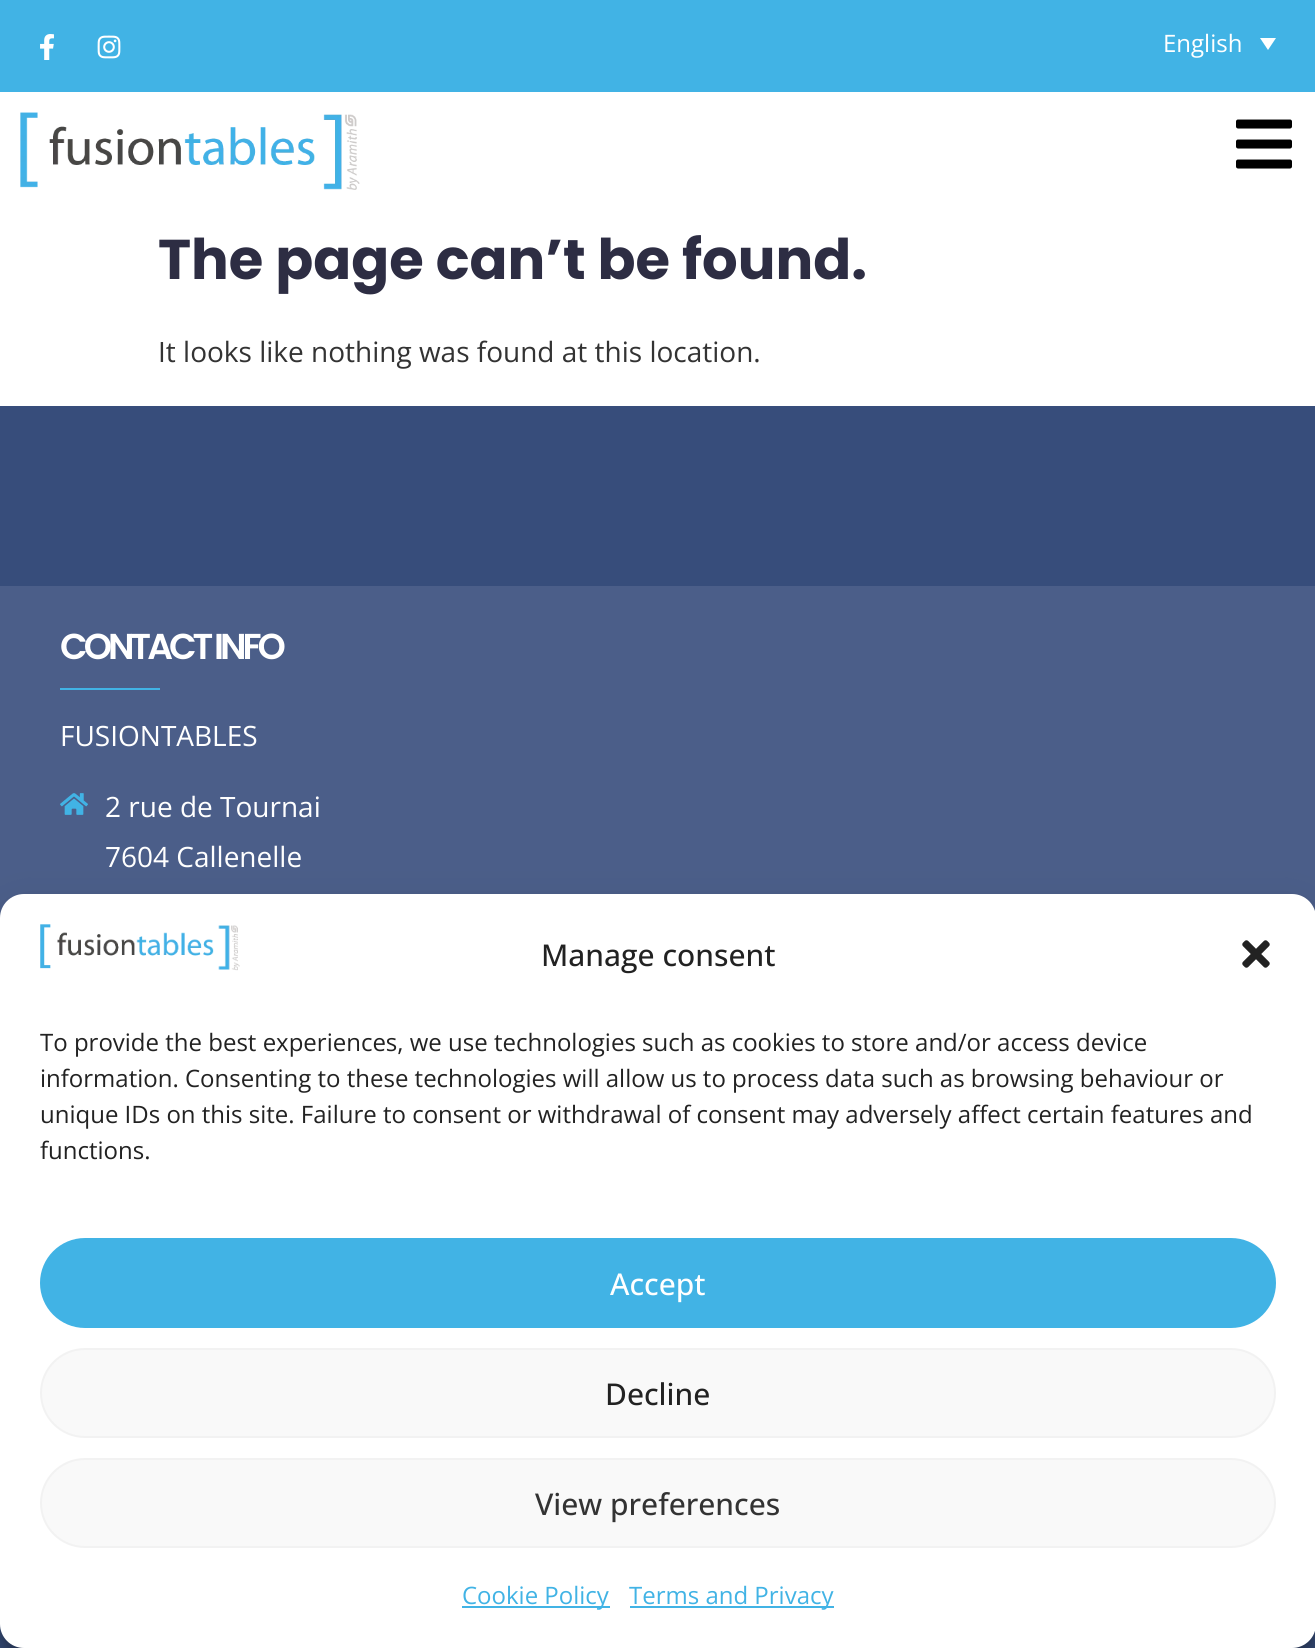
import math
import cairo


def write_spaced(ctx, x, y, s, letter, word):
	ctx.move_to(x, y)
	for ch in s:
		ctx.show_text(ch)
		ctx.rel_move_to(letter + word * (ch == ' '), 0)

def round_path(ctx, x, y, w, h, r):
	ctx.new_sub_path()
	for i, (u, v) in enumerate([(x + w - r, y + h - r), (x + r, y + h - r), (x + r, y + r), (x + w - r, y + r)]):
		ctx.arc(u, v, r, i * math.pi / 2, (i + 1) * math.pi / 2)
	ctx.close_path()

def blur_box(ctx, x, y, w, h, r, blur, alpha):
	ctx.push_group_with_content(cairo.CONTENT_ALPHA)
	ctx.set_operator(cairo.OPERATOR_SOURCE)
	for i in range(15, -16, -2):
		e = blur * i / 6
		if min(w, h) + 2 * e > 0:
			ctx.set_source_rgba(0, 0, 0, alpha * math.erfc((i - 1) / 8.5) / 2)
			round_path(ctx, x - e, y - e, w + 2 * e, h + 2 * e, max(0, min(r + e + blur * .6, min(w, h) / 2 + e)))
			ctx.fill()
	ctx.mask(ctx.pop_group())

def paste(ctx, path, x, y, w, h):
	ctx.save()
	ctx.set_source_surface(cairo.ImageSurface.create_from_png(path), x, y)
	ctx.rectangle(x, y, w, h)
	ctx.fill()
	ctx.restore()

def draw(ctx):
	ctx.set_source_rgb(1, 1, 1)
	ctx.paint()
	ctx.set_source_rgb(0.255, 0.702, 0.898)
	ctx.rectangle(0, 0, 1315, 92)
	ctx.fill()
	paste(ctx, 'media/1.png', 40, 34, 14, 26)
	paste(ctx, 'media/2.png', 97, 35, 24, 24)
	ctx.select_font_face('Open Sans')
	ctx.set_font_size(24)
	ctx.set_source_rgb(1, 1, 1)
	ctx.move_to(1163, 52)
	ctx.show_text('English')
	ctx.new_path()
	ctx.move_to(1260, 38)
	ctx.line_to(1276, 38)
	ctx.line_to(1268, 50)
	ctx.close_path()
	ctx.fill()
	paste(ctx, 'media/3.png', 20, 112, 340, 78)
	paste(ctx, 'media/4.png', 1236, 119, 56, 50)
	ctx.select_font_face('Poppins', cairo.FONT_SLANT_NORMAL, cairo.FONT_WEIGHT_BOLD)
	ctx.set_font_size(56)
	ctx.set_source_rgb(0.176, 0.176, 0.263)
	ctx.move_to(158, 279)
	ctx.show_text('The page can’t be found.')
	ctx.select_font_face('Open Sans')
	ctx.set_font_size(28)
	ctx.set_source_rgb(0.2, 0.2, 0.2)
	ctx.move_to(158, 362)
	ctx.show_text('It looks like nothing was found at this location.')
	ctx.set_source_rgb(0.216, 0.302, 0.482)
	ctx.rectangle(0, 406, 1315, 1242)
	ctx.fill()
	ctx.set_source_rgb(0.294, 0.369, 0.537)
	ctx.rectangle(0, 586, 1315, 332)
	ctx.fill()
	ctx.select_font_face('Poppins SemiBold')
	ctx.set_font_size(36)
	ctx.set_source_rgb(1, 1, 1)
	write_spaced(ctx, 60, 659, 'CONTACT INFO', -4, 0)
	ctx.set_source_rgb(0.255, 0.702, 0.898)
	ctx.rectangle(60, 688, 100, 2)
	ctx.fill()
	ctx.select_font_face('Open Sans')
	ctx.set_font_size(28)
	ctx.set_source_rgb(1, 1, 1)
	ctx.move_to(60, 746)
	ctx.show_text('FUSIONTABLES')
	paste(ctx, 'media/5.png', 60, 793, 28, 22)
	ctx.move_to(105, 817)
	ctx.show_text('2 rue de Tournai')
	ctx.move_to(105, 867)
	ctx.show_text('7604 Callenelle')
	ctx.set_source_rgb(0, 0, 0)
	blur_box(ctx, 0, 906, 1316, 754, 24, 6, 0.23)
	blur_box(ctx, 0, 914, 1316, 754, 24, 20, 0.19)
	ctx.set_source_rgb(1, 1, 1)
	round_path(ctx, 0, 894, 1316, 754, 24)
	ctx.fill()
	paste(ctx, 'media/6.png', 40, 924, 200, 47)
	ctx.select_font_face('Open Sans Medium')
	ctx.set_font_size(30)
	ctx.set_source_rgb(0.133, 0.133, 0.133)
	ctx.move_to(541, 966)
	ctx.show_text('Manage consent')
	paste(ctx, 'media/7.png', 1242, 940, 28, 28)
	ctx.select_font_face('Open Sans')
	ctx.set_font_size(24)
	for x, y, s in [
		(40, 1051, 'To provide the best experiences, we use technologies such as cookies to store and/or access device'),
		(40, 1087, 'information. Consenting to these technologies will allow us to process data such as browsing behaviour or'),
		(40, 1123, 'unique IDs on this site. Failure to consent or withdrawal of consent may adversely affect certain features and'),
		(40, 1159, 'functions.'),
	]:
		ctx.move_to(x, y)
		ctx.show_text(s)
	ctx.set_source_rgb(0.255, 0.702, 0.898)
	round_path(ctx, 41, 1239, 1234, 88, 44)
	ctx.fill_preserve()
	ctx.stroke()
	ctx.select_font_face('Open Sans Medium')
	ctx.set_font_size(30)
	ctx.set_source_rgb(1, 1, 1)
	ctx.move_to(610, 1295)
	ctx.show_text('Accept')
	ctx.set_source_rgb(0.976, 0.976, 0.976)
	round_path(ctx, 41, 1349, 1234, 88, 44)
	ctx.fill_preserve()
	ctx.set_source_rgb(0.949, 0.949, 0.949)
	ctx.stroke()
	ctx.set_source_rgb(0.133, 0.133, 0.133)
	ctx.move_to(605, 1405)
	ctx.show_text('Decline')
	ctx.set_source_rgb(0.976, 0.976, 0.976)
	round_path(ctx, 41, 1459, 1234, 88, 44)
	ctx.fill_preserve()
	ctx.set_source_rgb(0.949, 0.949, 0.949)
	ctx.stroke()
	ctx.set_source_rgb(0.2, 0.2, 0.2)
	ctx.move_to(535, 1515)
	ctx.show_text('View preferences')
	ctx.set_source_rgb(0.255, 0.702, 0.898)
	ctx.rectangle(462, 1606, 148, 2)
	ctx.fill()
	ctx.select_font_face('Open Sans')
	ctx.set_font_size(24)
	ctx.move_to(462, 1604)
	ctx.show_text('Cookie Policy')
	ctx.rectangle(630, 1606, 204, 2)
	ctx.fill()
	ctx.move_to(629, 1604)
	ctx.show_text('Terms and Privacy')


surface = cairo.ImageSurface(cairo.FORMAT_RGB24, 1315, 1648)
ctx = cairo.Context(surface)
options = cairo.FontOptions()
options.set_hint_metrics(cairo.HINT_METRICS_OFF)
options.set_hint_style(cairo.HINT_STYLE_NONE)
ctx.set_font_options(options)
ctx.set_miter_limit(4)
draw(ctx)
surface.write_to_png('image.png')
